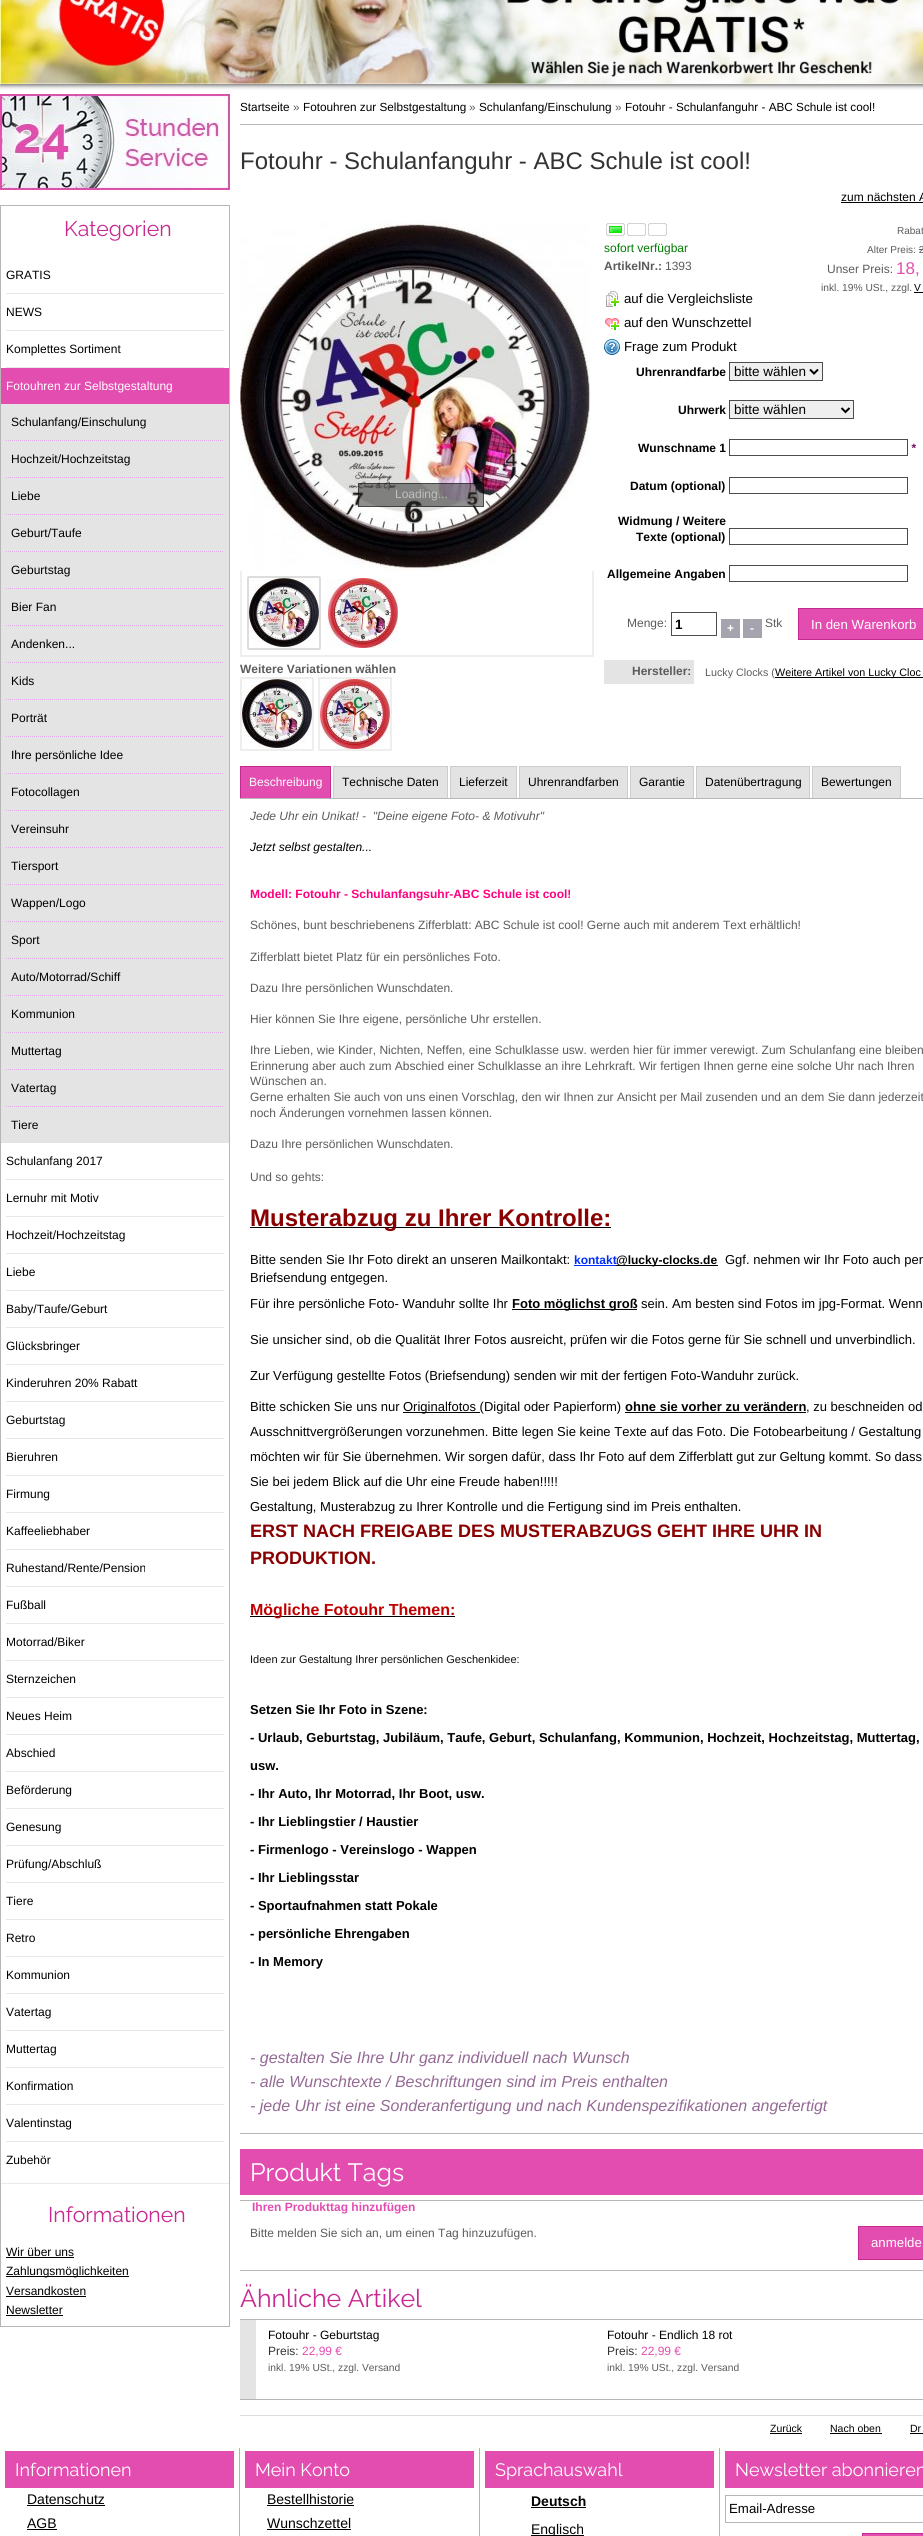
import math
import cairo


def round_path(ctx, x, y, w, h, r):
	ctx.new_sub_path()
	for i, (u, v) in enumerate([(x + w - r, y + h - r), (x + r, y + h - r), (x + r, y + r), (x + w - r, y + r)]):
		ctx.arc(u, v, r, i * math.pi / 2, (i + 1) * math.pi / 2)
	ctx.close_path()

def blur_box(ctx, x, y, w, h, r, blur, alpha):
	ctx.push_group_with_content(cairo.CONTENT_ALPHA)
	ctx.set_operator(cairo.OPERATOR_SOURCE)
	for i in range(15, -16, -2):
		e = blur * i / 6
		if min(w, h) + 2 * e > 0:
			ctx.set_source_rgba(0, 0, 0, alpha * math.erfc((i - 1) / 8.5) / 2)
			round_path(ctx, x - e, y - e, w + 2 * e, h + 2 * e, max(0, min(r + e + blur * .6, min(w, h) / 2 + e)))
			ctx.fill()
	ctx.mask(ctx.pop_group())

def paste(ctx, path, x, y, w, h):
	ctx.save()
	ctx.set_source_surface(cairo.ImageSurface.create_from_png(path), x, y)
	ctx.rectangle(x, y, w, h)
	ctx.fill()
	ctx.restore()

def draw(ctx):
	ctx.set_source_rgb(1, 1, 1)
	ctx.paint()
	ctx.set_source_rgb(0.29, 0.29, 0.29)
	blur_box(ctx, 0, -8, 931, 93, 0, 2.5, 1)
	paste(ctx, 'media/1.png', 0, 0, 923, 84)
	paste(ctx, 'media/2.png', 0, 94, 230, 96)
	ctx.rectangle(0.5, 205.5, 229, 2121)
	ctx.set_source_rgb(0.714, 0.714, 0.714)
	ctx.set_line_width(1)
	ctx.stroke()
	ctx.set_source_rgb(0.922, 0.914, 0.918)
	ctx.rectangle(1, 2183, 228, 1)
	ctx.fill()
	ctx.select_font_face('Raleway Thin')
	ctx.set_font_size(21.25)
	ctx.set_source_rgb(0.78, 0.161, 0.569)
	ctx.move_to(64, 236)
	ctx.show_text('Kategorien')
	ctx.set_source_rgb(0.91, 0.91, 0.91)
	ctx.rectangle(6, 293, 218, 1)
	ctx.fill()
	ctx.select_font_face('Liberation Sans')
	ctx.set_font_size(12)
	ctx.set_source_rgb(0, 0, 0)
	ctx.move_to(6, 279)
	ctx.show_text('GRATIS')
	ctx.set_source_rgb(0.91, 0.91, 0.91)
	ctx.rectangle(6, 330, 218, 1)
	ctx.fill()
	ctx.set_source_rgb(0, 0, 0)
	ctx.move_to(6, 316)
	ctx.show_text('NEWS')
	ctx.set_source_rgb(0.91, 0.91, 0.91)
	ctx.rectangle(6, 367, 218, 1)
	ctx.fill()
	ctx.set_source_rgb(0, 0, 0)
	ctx.move_to(6, 353)
	ctx.show_text('Komplettes Sortiment')
	ctx.set_source_rgb(0.894, 0.894, 0.894)
	ctx.rectangle(1, 404, 228, 739)
	ctx.fill()
	ctx.set_source_rgb(0.89, 0.302, 0.69)
	ctx.rectangle(1, 368, 228, 36)
	ctx.fill()
	ctx.set_source_rgb(1, 1, 1)
	ctx.move_to(6, 390)
	ctx.show_text('Fotouhren zur Selbstgestaltung')
	ctx.new_path()
	ctx.move_to(6, 440.5)
	ctx.line_to(224, 440.5)
	ctx.set_source_rgb(0.89, 0.651, 0.914)
	ctx.set_dash([1, 1])
	ctx.stroke()
	ctx.set_source_rgb(0, 0, 0)
	ctx.move_to(11, 426)
	ctx.show_text('Schulanfang/Einschulung')
	ctx.new_path()
	ctx.move_to(6, 477.5)
	ctx.line_to(224, 477.5)
	ctx.set_source_rgb(0.89, 0.651, 0.914)
	ctx.stroke()
	ctx.set_source_rgb(0, 0, 0)
	ctx.move_to(11, 463)
	ctx.show_text('Hochzeit/Hochzeitstag')
	ctx.new_path()
	ctx.move_to(6, 514.5)
	ctx.line_to(224, 514.5)
	ctx.set_source_rgb(0.89, 0.651, 0.914)
	ctx.stroke()
	ctx.set_source_rgb(0, 0, 0)
	ctx.move_to(11, 500)
	ctx.show_text('Liebe')
	ctx.new_path()
	ctx.move_to(6, 551.5)
	ctx.line_to(224, 551.5)
	ctx.set_source_rgb(0.89, 0.651, 0.914)
	ctx.stroke()
	ctx.set_source_rgb(0, 0, 0)
	ctx.move_to(11, 537)
	ctx.show_text('Geburt/Taufe')
	ctx.new_path()
	ctx.move_to(6, 588.5)
	ctx.line_to(224, 588.5)
	ctx.set_source_rgb(0.89, 0.651, 0.914)
	ctx.stroke()
	ctx.set_source_rgb(0, 0, 0)
	ctx.move_to(11, 574)
	ctx.show_text('Geburtstag')
	ctx.new_path()
	ctx.move_to(6, 625.5)
	ctx.line_to(224, 625.5)
	ctx.set_source_rgb(0.89, 0.651, 0.914)
	ctx.stroke()
	ctx.set_source_rgb(0, 0, 0)
	ctx.move_to(11, 611)
	ctx.show_text('Bier Fan')
	ctx.new_path()
	ctx.move_to(6, 662.5)
	ctx.line_to(224, 662.5)
	ctx.set_source_rgb(0.89, 0.651, 0.914)
	ctx.stroke()
	ctx.set_source_rgb(0, 0, 0)
	ctx.move_to(11, 648)
	ctx.show_text('Andenken...')
	ctx.new_path()
	ctx.move_to(6, 699.5)
	ctx.line_to(224, 699.5)
	ctx.set_source_rgb(0.89, 0.651, 0.914)
	ctx.stroke()
	ctx.set_source_rgb(0, 0, 0)
	ctx.move_to(11, 685)
	ctx.show_text('Kids')
	ctx.new_path()
	ctx.move_to(6, 736.5)
	ctx.line_to(224, 736.5)
	ctx.set_source_rgb(0.89, 0.651, 0.914)
	ctx.stroke()
	ctx.set_source_rgb(0, 0, 0)
	ctx.move_to(11, 722)
	ctx.show_text('Porträt')
	ctx.new_path()
	ctx.move_to(6, 773.5)
	ctx.line_to(224, 773.5)
	ctx.set_source_rgb(0.89, 0.651, 0.914)
	ctx.stroke()
	ctx.set_source_rgb(0, 0, 0)
	ctx.move_to(11, 759)
	ctx.show_text('Ihre persönliche Idee')
	ctx.new_path()
	ctx.move_to(6, 810.5)
	ctx.line_to(224, 810.5)
	ctx.set_source_rgb(0.89, 0.651, 0.914)
	ctx.stroke()
	ctx.set_source_rgb(0, 0, 0)
	ctx.move_to(11, 796)
	ctx.show_text('Fotocollagen')
	ctx.new_path()
	ctx.move_to(6, 847.5)
	ctx.line_to(224, 847.5)
	ctx.set_source_rgb(0.89, 0.651, 0.914)
	ctx.stroke()
	ctx.set_source_rgb(0, 0, 0)
	ctx.move_to(11, 833)
	ctx.show_text('Vereinsuhr')
	ctx.new_path()
	ctx.move_to(6, 884.5)
	ctx.line_to(224, 884.5)
	ctx.set_source_rgb(0.89, 0.651, 0.914)
	ctx.stroke()
	ctx.set_source_rgb(0, 0, 0)
	ctx.move_to(11, 870)
	ctx.show_text('Tiersport')
	ctx.new_path()
	ctx.move_to(6, 921.5)
	ctx.line_to(224, 921.5)
	ctx.set_source_rgb(0.89, 0.651, 0.914)
	ctx.stroke()
	ctx.set_source_rgb(0, 0, 0)
	ctx.move_to(11, 907)
	ctx.show_text('Wappen/Logo')
	ctx.new_path()
	ctx.move_to(6, 958.5)
	ctx.line_to(224, 958.5)
	ctx.set_source_rgb(0.89, 0.651, 0.914)
	ctx.stroke()
	ctx.set_source_rgb(0, 0, 0)
	ctx.move_to(11, 944)
	ctx.show_text('Sport')
	ctx.new_path()
	ctx.move_to(6, 995.5)
	ctx.line_to(224, 995.5)
	ctx.set_source_rgb(0.89, 0.651, 0.914)
	ctx.stroke()
	ctx.set_source_rgb(0, 0, 0)
	ctx.move_to(11, 981)
	ctx.show_text('Auto/Motorrad/Schiff')
	ctx.new_path()
	ctx.move_to(6, 1032.5)
	ctx.line_to(224, 1032.5)
	ctx.set_source_rgb(0.89, 0.651, 0.914)
	ctx.stroke()
	ctx.set_source_rgb(0, 0, 0)
	ctx.move_to(11, 1018)
	ctx.show_text('Kommunion')
	ctx.new_path()
	ctx.move_to(6, 1069.5)
	ctx.line_to(224, 1069.5)
	ctx.set_source_rgb(0.89, 0.651, 0.914)
	ctx.stroke()
	ctx.set_source_rgb(0, 0, 0)
	ctx.move_to(11, 1055)
	ctx.show_text('Muttertag')
	ctx.new_path()
	ctx.move_to(6, 1106.5)
	ctx.line_to(224, 1106.5)
	ctx.set_source_rgb(0.89, 0.651, 0.914)
	ctx.stroke()
	ctx.set_source_rgb(0, 0, 0)
	ctx.move_to(11, 1092)
	ctx.show_text('Vatertag')
	ctx.move_to(11, 1129)
	ctx.show_text('Tiere')
	ctx.set_source_rgb(0.91, 0.91, 0.91)
	ctx.rectangle(6, 1179, 218, 1)
	ctx.fill()
	ctx.set_source_rgb(0, 0, 0)
	ctx.move_to(6, 1165)
	ctx.show_text('Schulanfang 2017')
	ctx.set_source_rgb(0.91, 0.91, 0.91)
	ctx.rectangle(6, 1216, 218, 1)
	ctx.fill()
	ctx.set_source_rgb(0, 0, 0)
	ctx.move_to(6, 1202)
	ctx.show_text('Lernuhr mit Motiv')
	ctx.set_source_rgb(0.91, 0.91, 0.91)
	ctx.rectangle(6, 1253, 218, 1)
	ctx.fill()
	ctx.set_source_rgb(0, 0, 0)
	ctx.move_to(6, 1239)
	ctx.show_text('Hochzeit/Hochzeitstag')
	ctx.set_source_rgb(0.91, 0.91, 0.91)
	ctx.rectangle(6, 1290, 218, 1)
	ctx.fill()
	ctx.set_source_rgb(0, 0, 0)
	ctx.move_to(6, 1276)
	ctx.show_text('Liebe')
	ctx.set_source_rgb(0.91, 0.91, 0.91)
	ctx.rectangle(6, 1327, 218, 1)
	ctx.fill()
	ctx.set_source_rgb(0, 0, 0)
	ctx.move_to(6, 1313)
	ctx.show_text('Baby/Taufe/Geburt')
	ctx.set_source_rgb(0.91, 0.91, 0.91)
	ctx.rectangle(6, 1364, 218, 1)
	ctx.fill()
	ctx.set_source_rgb(0, 0, 0)
	ctx.move_to(6, 1350)
	ctx.show_text('Glücksbringer')
	ctx.set_source_rgb(0.91, 0.91, 0.91)
	ctx.rectangle(6, 1401, 218, 1)
	ctx.fill()
	ctx.set_source_rgb(0, 0, 0)
	ctx.move_to(6, 1387)
	ctx.show_text('Kinderuhren 20% Rabatt')
	ctx.set_source_rgb(0.91, 0.91, 0.91)
	ctx.rectangle(6, 1438, 218, 1)
	ctx.fill()
	ctx.set_source_rgb(0, 0, 0)
	ctx.move_to(6, 1424)
	ctx.show_text('Geburtstag')
	ctx.set_source_rgb(0.91, 0.91, 0.91)
	ctx.rectangle(6, 1475, 218, 1)
	ctx.fill()
	ctx.set_source_rgb(0, 0, 0)
	ctx.move_to(6, 1461)
	ctx.show_text('Bieruhren')
	ctx.set_source_rgb(0.91, 0.91, 0.91)
	ctx.rectangle(6, 1512, 218, 1)
	ctx.fill()
	ctx.set_source_rgb(0, 0, 0)
	ctx.move_to(6, 1498)
	ctx.show_text('Firmung')
	ctx.set_source_rgb(0.91, 0.91, 0.91)
	ctx.rectangle(6, 1549, 218, 1)
	ctx.fill()
	ctx.set_source_rgb(0, 0, 0)
	ctx.move_to(6, 1535)
	ctx.show_text('Kaffeeliebhaber')
	ctx.set_source_rgb(0.91, 0.91, 0.91)
	ctx.rectangle(6, 1586, 218, 1)
	ctx.fill()
	ctx.set_source_rgb(0, 0, 0)
	ctx.move_to(6, 1572)
	ctx.show_text('Ruhestand/Rente/Pension')
	ctx.set_source_rgb(0.91, 0.91, 0.91)
	ctx.rectangle(6, 1623, 218, 1)
	ctx.fill()
	ctx.set_source_rgb(0, 0, 0)
	ctx.move_to(6, 1609)
	ctx.show_text('Fußball')
	ctx.set_source_rgb(0.91, 0.91, 0.91)
	ctx.rectangle(6, 1660, 218, 1)
	ctx.fill()
	ctx.set_source_rgb(0, 0, 0)
	ctx.move_to(6, 1646)
	ctx.show_text('Motorrad/Biker')
	ctx.set_source_rgb(0.91, 0.91, 0.91)
	ctx.rectangle(6, 1697, 218, 1)
	ctx.fill()
	ctx.set_source_rgb(0, 0, 0)
	ctx.move_to(6, 1683)
	ctx.show_text('Sternzeichen')
	ctx.set_source_rgb(0.91, 0.91, 0.91)
	ctx.rectangle(6, 1734, 218, 1)
	ctx.fill()
	ctx.set_source_rgb(0, 0, 0)
	ctx.move_to(6, 1720)
	ctx.show_text('Neues Heim')
	ctx.set_source_rgb(0.91, 0.91, 0.91)
	ctx.rectangle(6, 1771, 218, 1)
	ctx.fill()
	ctx.set_source_rgb(0, 0, 0)
	ctx.move_to(6, 1757)
	ctx.show_text('Abschied')
	ctx.set_source_rgb(0.91, 0.91, 0.91)
	ctx.rectangle(6, 1808, 218, 1)
	ctx.fill()
	ctx.set_source_rgb(0, 0, 0)
	ctx.move_to(6, 1794)
	ctx.show_text('Beförderung')
	ctx.set_source_rgb(0.91, 0.91, 0.91)
	ctx.rectangle(6, 1845, 218, 1)
	ctx.fill()
	ctx.set_source_rgb(0, 0, 0)
	ctx.move_to(6, 1831)
	ctx.show_text('Genesung')
	ctx.set_source_rgb(0.91, 0.91, 0.91)
	ctx.rectangle(6, 1882, 218, 1)
	ctx.fill()
	ctx.set_source_rgb(0, 0, 0)
	ctx.move_to(6, 1868)
	ctx.show_text('Prüfung/Abschluß')
	ctx.set_source_rgb(0.91, 0.91, 0.91)
	ctx.rectangle(6, 1919, 218, 1)
	ctx.fill()
	ctx.set_source_rgb(0, 0, 0)
	ctx.move_to(6, 1905)
	ctx.show_text('Tiere')
	ctx.set_source_rgb(0.91, 0.91, 0.91)
	ctx.rectangle(6, 1956, 218, 1)
	ctx.fill()
	ctx.set_source_rgb(0, 0, 0)
	ctx.move_to(6, 1942)
	ctx.show_text('Retro')
	ctx.set_source_rgb(0.91, 0.91, 0.91)
	ctx.rectangle(6, 1993, 218, 1)
	ctx.fill()
	ctx.set_source_rgb(0, 0, 0)
	ctx.move_to(6, 1979)
	ctx.show_text('Kommunion')
	ctx.set_source_rgb(0.91, 0.91, 0.91)
	ctx.rectangle(6, 2030, 218, 1)
	ctx.fill()
	ctx.set_source_rgb(0, 0, 0)
	ctx.move_to(6, 2016)
	ctx.show_text('Vatertag')
	ctx.set_source_rgb(0.91, 0.91, 0.91)
	ctx.rectangle(6, 2067, 218, 1)
	ctx.fill()
	ctx.set_source_rgb(0, 0, 0)
	ctx.move_to(6, 2053)
	ctx.show_text('Muttertag')
	ctx.set_source_rgb(0.91, 0.91, 0.91)
	ctx.rectangle(6, 2104, 218, 1)
	ctx.fill()
	ctx.set_source_rgb(0, 0, 0)
	ctx.move_to(6, 2090)
	ctx.show_text('Konfirmation')
	ctx.set_source_rgb(0.91, 0.91, 0.91)
	ctx.rectangle(6, 2141, 218, 1)
	ctx.fill()
	ctx.set_source_rgb(0, 0, 0)
	ctx.move_to(6, 2127)
	ctx.show_text('Valentinstag')
	ctx.move_to(6, 2164)
	ctx.show_text('Zubehör')
	ctx.select_font_face('Raleway Thin')
	ctx.set_font_size(21.25)
	ctx.set_source_rgb(0.78, 0.161, 0.569)
	ctx.move_to(48, 2222)
	ctx.show_text('Informationen')
	ctx.select_font_face('Liberation Sans')
	ctx.set_font_size(12)
	ctx.set_source_rgb(0, 0, 0)
	ctx.move_to(6, 2256)
	ctx.show_text('Wir über uns')
	ctx.rectangle(6, 2257, 68, 1)
	ctx.fill()
	ctx.rectangle(6, 2276, 123, 1)
	ctx.fill()
	ctx.move_to(6, 2275)
	ctx.show_text('Zahlungsmöglichkeiten')
	ctx.move_to(6, 2295)
	ctx.show_text('Versandkosten')
	ctx.rectangle(6, 2296, 80, 1)
	ctx.fill()
	ctx.move_to(6, 2314)
	ctx.show_text('Newsletter')
	ctx.rectangle(6, 2315, 57, 1)
	ctx.fill()
	ctx.set_source_rgb(0.718, 0.718, 0.718)
	ctx.rectangle(240, 124, 683, 1)
	ctx.fill()
	ctx.set_font_size(11.75)
	ctx.set_source_rgb(0, 0, 0)
	ctx.move_to(240, 111)
	ctx.show_text('Startseite')
	ctx.set_source_rgb(0.357, 0.357, 0.357)
	ctx.move_to(293, 111)
	ctx.show_text('»')
	ctx.set_source_rgb(0, 0, 0)
	ctx.move_to(303, 111)
	ctx.show_text('Fotouhren zur Selbstgestaltung')
	ctx.set_source_rgb(0.357, 0.357, 0.357)
	ctx.move_to(469, 111)
	ctx.show_text('»')
	ctx.set_source_rgb(0, 0, 0)
	ctx.move_to(479, 111)
	ctx.show_text('Schulanfang/Einschulung')
	ctx.set_source_rgb(0.357, 0.357, 0.357)
	ctx.move_to(615, 111)
	ctx.show_text('»')
	ctx.set_source_rgb(0, 0, 0)
	ctx.move_to(625, 111)
	ctx.show_text('Fotouhr - Schulanfanguhr - ABC Schule ist cool!')
	ctx.set_font_size(24)
	ctx.set_source_rgb(0.2, 0.2, 0.2)
	ctx.move_to(240, 169)
	ctx.show_text('Fotouhr - Schulanfanguhr - ABC Schule ist cool!')
	ctx.set_font_size(12)
	ctx.set_source_rgb(0, 0, 0)
	ctx.move_to(841, 201)
	ctx.show_text('zum nächsten A')
	ctx.rectangle(841, 202, 82, 1)
	ctx.fill()
	paste(ctx, 'media/3.png', 240, 221, 350, 350)
	ctx.set_source_rgba(0.133, 0.133, 0.133, 0.5)
	ctx.rectangle(358, 483, 126, 24)
	ctx.fill()
	ctx.rectangle(358.5, 483.5, 125, 23)
	ctx.set_source_rgba(0, 0, 0, 0.5)
	ctx.set_dash([])
	ctx.stroke()
	ctx.set_source_rgb(0.753, 0.753, 0.749)
	ctx.move_to(395, 498)
	ctx.show_text('Loading...')
	ctx.set_source_rgb(0.933, 0.933, 0.933)
	ctx.rectangle(592, 571, 2, 86)
	ctx.rectangle(240, 655, 354, 2)
	ctx.rectangle(240, 571, 2, 86)
	ctx.fill()
	round_path(ctx, 248, 577, 72, 72, 1)
	ctx.set_source_rgb(0.867, 0.867, 0.867)
	ctx.set_line_width(2)
	ctx.stroke()
	paste(ctx, 'media/4.png', 249, 578, 70, 70)
	paste(ctx, 'media/5.png', 328, 578, 70, 70)
	ctx.select_font_face('Liberation Sans', cairo.FONT_SLANT_NORMAL, cairo.FONT_WEIGHT_BOLD)
	ctx.set_source_rgb(0.357, 0.357, 0.357)
	ctx.move_to(240, 673)
	ctx.show_text('Weitere Variationen wählen')
	ctx.rectangle(241, 678, 72, 72)
	ctx.set_source_rgb(0.933, 0.933, 0.933)
	ctx.stroke()
	paste(ctx, 'media/4.png', 242, 679, 70, 70)
	ctx.rectangle(319, 678, 72, 72)
	ctx.stroke()
	paste(ctx, 'media/5.png', 320, 679, 70, 70)
	paste(ctx, 'media/6.png', 606, 223, 61, 13)
	ctx.select_font_face('Liberation Sans')
	ctx.set_source_rgb(0, 0.486, 0)
	ctx.move_to(604, 252)
	ctx.show_text('sofort verfügbar')
	ctx.select_font_face('Liberation Sans', cairo.FONT_SLANT_NORMAL, cairo.FONT_WEIGHT_BOLD)
	ctx.set_source_rgb(0.357, 0.357, 0.357)
	ctx.move_to(604, 270)
	ctx.show_text('ArtikelNr.:')
	ctx.select_font_face('Liberation Sans')
	ctx.move_to(665, 270)
	ctx.show_text('1393')
	paste(ctx, 'media/7.png', 606, 291, 13, 16)
	ctx.set_font_size(13.25)
	ctx.set_source_rgb(0, 0, 0)
	ctx.move_to(624, 303)
	ctx.show_text('auf die Vergleichsliste')
	paste(ctx, 'media/8.png', 605, 318, 14, 12)
	ctx.move_to(624, 327)
	ctx.show_text('auf den Wunschzettel')
	paste(ctx, 'media/9.png', 604, 339, 16, 16)
	ctx.move_to(624, 351)
	ctx.show_text('Frage zum Produkt')
	ctx.set_font_size(10)
	ctx.set_source_rgb(0.357, 0.357, 0.357)
	ctx.move_to(897, 234)
	ctx.show_text('Rabat')
	ctx.move_to(867, 253)
	ctx.show_text('Alter Preis: 2')
	ctx.rectangle(919, 249, 4, 1)
	ctx.fill()
	ctx.set_font_size(12)
	ctx.move_to(827, 273)
	ctx.show_text('Unser Preis:')
	ctx.set_font_size(17)
	ctx.set_source_rgb(0.89, 0.302, 0.69)
	ctx.move_to(896, 274)
	ctx.show_text('18,')
	ctx.set_font_size(10.25)
	ctx.set_source_rgb(0.357, 0.357, 0.357)
	ctx.move_to(821, 291)
	ctx.show_text('inkl. 19% USt., zzgl.')
	ctx.set_source_rgb(0, 0, 0)
	ctx.move_to(914, 291)
	ctx.show_text('V')
	ctx.rectangle(914, 292, 9, 1)
	ctx.fill()
	ctx.select_font_face('Liberation Sans', cairo.FONT_SLANT_NORMAL, cairo.FONT_WEIGHT_BOLD)
	ctx.set_font_size(12)
	ctx.move_to(636, 376)
	ctx.show_text('Uhrenrandfarbe')
	ctx.set_source_rgb(0.937, 0.937, 0.937)
	ctx.rectangle(729.5, 362.5, 93, 18)
	ctx.fill_preserve()
	ctx.set_source_rgb(0.298, 0.298, 0.298)
	ctx.set_line_width(1)
	ctx.stroke()
	ctx.new_path()
	ctx.move_to(810, 369.5)
	ctx.line_to(814, 373.5)
	ctx.line_to(818, 369.5)
	ctx.set_source_rgb(0, 0, 0)
	ctx.set_line_width(2)
	ctx.stroke()
	ctx.select_font_face('Liberation Sans')
	ctx.set_font_size(13.5)
	ctx.move_to(734, 376)
	ctx.show_text('bitte wählen')
	ctx.select_font_face('Liberation Sans', cairo.FONT_SLANT_NORMAL, cairo.FONT_WEIGHT_BOLD)
	ctx.set_font_size(12)
	ctx.move_to(678, 414)
	ctx.show_text('Uhrwerk')
	ctx.set_source_rgb(0.937, 0.937, 0.937)
	ctx.rectangle(729.5, 400.5, 124, 18)
	ctx.fill_preserve()
	ctx.set_source_rgb(0.298, 0.298, 0.298)
	ctx.set_line_width(1)
	ctx.stroke()
	ctx.new_path()
	ctx.move_to(841.5, 408)
	ctx.line_to(845.5, 412)
	ctx.line_to(849.5, 408)
	ctx.set_source_rgb(0, 0, 0)
	ctx.set_line_width(2)
	ctx.stroke()
	ctx.select_font_face('Liberation Sans')
	ctx.set_font_size(13.5)
	ctx.move_to(734, 414)
	ctx.show_text('bitte wählen')
	ctx.select_font_face('Liberation Sans', cairo.FONT_SLANT_NORMAL, cairo.FONT_WEIGHT_BOLD)
	ctx.set_font_size(12)
	ctx.move_to(638, 452)
	ctx.show_text('Wunschname 1')
	ctx.rectangle(729.5, 439.5, 178, 16)
	ctx.set_source_rgb(0.298, 0.298, 0.298)
	ctx.set_line_width(1)
	ctx.stroke()
	ctx.select_font_face('Liberation Sans', cairo.FONT_SLANT_ITALIC, cairo.FONT_WEIGHT_BOLD)
	ctx.set_source_rgb(0.424, 0.09, 0.376)
	ctx.move_to(911, 452)
	ctx.show_text('*')
	ctx.select_font_face('Liberation Sans', cairo.FONT_SLANT_NORMAL, cairo.FONT_WEIGHT_BOLD)
	ctx.set_source_rgb(0, 0, 0)
	ctx.move_to(630, 490)
	ctx.show_text('Datum (optional)')
	ctx.rectangle(729.5, 477.5, 178, 16)
	ctx.set_source_rgb(0.298, 0.298, 0.298)
	ctx.stroke()
	ctx.set_source_rgb(0, 0, 0)
	ctx.move_to(618, 525)
	ctx.show_text('Widmung / Weitere')
	ctx.move_to(636, 541)
	ctx.show_text('Texte (optional)')
	ctx.rectangle(729.5, 528.5, 178, 16)
	ctx.set_source_rgb(0.298, 0.298, 0.298)
	ctx.stroke()
	ctx.set_source_rgb(0, 0, 0)
	ctx.move_to(607, 578)
	ctx.show_text('Allgemeine Angaben')
	ctx.rectangle(729.5, 565.5, 178, 16)
	ctx.set_source_rgb(0.298, 0.298, 0.298)
	ctx.stroke()
	ctx.select_font_face('Liberation Sans')
	ctx.set_source_rgb(0.357, 0.357, 0.357)
	ctx.move_to(627, 627)
	ctx.show_text('Menge:')
	ctx.rectangle(671.5, 612.5, 45, 23)
	ctx.set_source_rgb(0.298, 0.298, 0.298)
	ctx.stroke()
	ctx.select_font_face('Liberation Sans', cairo.FONT_SLANT_NORMAL, cairo.FONT_WEIGHT_BOLD)
	ctx.set_font_size(13.5)
	ctx.set_source_rgb(0, 0, 0)
	ctx.move_to(675, 629)
	ctx.show_text('1')
	ctx.set_source_rgb(0.647, 0.639, 0.682)
	ctx.rectangle(721, 619, 19, 19)
	ctx.fill()
	ctx.set_font_size(12)
	ctx.set_source_rgb(1, 1, 1)
	ctx.move_to(727, 632)
	ctx.show_text('+')
	ctx.set_source_rgb(0.647, 0.639, 0.682)
	ctx.rectangle(743, 619, 19, 19)
	ctx.fill()
	ctx.set_source_rgb(1, 1, 1)
	ctx.move_to(750, 632)
	ctx.show_text('-')
	ctx.select_font_face('Liberation Sans')
	ctx.set_source_rgb(0.357, 0.357, 0.357)
	ctx.move_to(765, 627)
	ctx.show_text('Stk')
	ctx.set_source_rgb(0.89, 0.302, 0.69)
	ctx.rectangle(798.5, 608.5, 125, 31)
	ctx.fill_preserve()
	ctx.set_source_rgb(0.776, 0.161, 0.58)
	ctx.stroke()
	ctx.set_font_size(13.25)
	ctx.set_source_rgb(1, 1, 1)
	ctx.move_to(811, 629)
	ctx.show_text('In den Warenkorb')
	ctx.set_source_rgb(0.894, 0.894, 0.894)
	ctx.rectangle(604, 660, 90, 24)
	ctx.fill()
	ctx.select_font_face('Liberation Sans', cairo.FONT_SLANT_NORMAL, cairo.FONT_WEIGHT_BOLD)
	ctx.set_font_size(12)
	ctx.set_source_rgb(0.357, 0.357, 0.357)
	ctx.move_to(632, 675)
	ctx.show_text('Hersteller:')
	ctx.select_font_face('Liberation Sans')
	ctx.set_font_size(10.75)
	ctx.move_to(705, 676)
	ctx.show_text('Lucky Clocks (')
	ctx.set_source_rgb(0, 0, 0)
	ctx.rectangle(775, 677, 148, 1)
	ctx.fill()
	ctx.move_to(775, 676)
	ctx.show_text('Weitere Artikel von Lucky Cloc')
	ctx.set_source_rgb(0.89, 0.302, 0.69)
	ctx.rectangle(241, 767, 89, 31)
	ctx.fill()
	ctx.set_source_rgb(0.776, 0.161, 0.58)
	ctx.rectangle(240, 766, 91, 1)
	ctx.rectangle(330, 766, 1, 32)
	ctx.rectangle(240, 766, 1, 32)
	ctx.fill()
	ctx.set_font_size(12)
	ctx.set_source_rgb(1, 1, 1)
	ctx.move_to(249, 786)
	ctx.show_text('Beschreibung')
	ctx.set_source_rgb(0.89, 0.89, 0.89)
	ctx.rectangle(334, 767, 113, 31)
	ctx.fill()
	ctx.set_source_rgb(0.804, 0.804, 0.804)
	ctx.rectangle(333, 766, 115, 1)
	ctx.rectangle(447, 766, 1, 32)
	ctx.rectangle(333, 766, 1, 32)
	ctx.fill()
	ctx.set_source_rgb(0, 0, 0)
	ctx.move_to(342, 786)
	ctx.show_text('Technische Daten')
	ctx.set_source_rgb(0.89, 0.89, 0.89)
	ctx.rectangle(451, 767, 65, 31)
	ctx.fill()
	ctx.set_source_rgb(0.804, 0.804, 0.804)
	ctx.rectangle(450, 766, 67, 1)
	ctx.rectangle(516, 766, 1, 32)
	ctx.rectangle(450, 766, 1, 32)
	ctx.fill()
	ctx.set_source_rgb(0, 0, 0)
	ctx.move_to(459, 786)
	ctx.show_text('Lieferzeit')
	ctx.set_source_rgb(0.89, 0.89, 0.89)
	ctx.rectangle(520, 767, 107, 31)
	ctx.fill()
	ctx.set_source_rgb(0.804, 0.804, 0.804)
	ctx.rectangle(519, 766, 109, 1)
	ctx.rectangle(627, 766, 1, 32)
	ctx.rectangle(519, 766, 1, 32)
	ctx.fill()
	ctx.set_source_rgb(0, 0, 0)
	ctx.move_to(528, 786)
	ctx.show_text('Uhrenrandfarben')
	ctx.set_source_rgb(0.89, 0.89, 0.89)
	ctx.rectangle(631, 767, 62, 31)
	ctx.fill()
	ctx.set_source_rgb(0.804, 0.804, 0.804)
	ctx.rectangle(630, 766, 64, 1)
	ctx.rectangle(693, 766, 1, 32)
	ctx.rectangle(630, 766, 1, 32)
	ctx.fill()
	ctx.set_source_rgb(0, 0, 0)
	ctx.move_to(639, 786)
	ctx.show_text('Garantie')
	ctx.set_source_rgb(0.89, 0.89, 0.89)
	ctx.rectangle(697, 767, 112, 31)
	ctx.fill()
	ctx.set_source_rgb(0.804, 0.804, 0.804)
	ctx.rectangle(696, 766, 114, 1)
	ctx.rectangle(809, 766, 1, 32)
	ctx.rectangle(696, 766, 1, 32)
	ctx.fill()
	ctx.set_source_rgb(0, 0, 0)
	ctx.move_to(705, 786)
	ctx.show_text('Datenübertragung')
	ctx.set_source_rgb(0.89, 0.89, 0.89)
	ctx.rectangle(813, 767, 87, 31)
	ctx.fill()
	ctx.set_source_rgb(0.804, 0.804, 0.804)
	ctx.rectangle(812, 766, 89, 1)
	ctx.rectangle(900, 766, 1, 32)
	ctx.rectangle(812, 766, 1, 32)
	ctx.fill()
	ctx.set_source_rgb(0, 0, 0)
	ctx.move_to(821, 786)
	ctx.show_text('Bewertungen')
	ctx.set_source_rgb(0.714, 0.714, 0.714)
	ctx.rectangle(240, 798, 683, 1)
	ctx.fill()
	ctx.rectangle(240, 2133, 683, 1)
	ctx.fill()
	ctx.select_font_face('Liberation Sans', cairo.FONT_SLANT_ITALIC)
	ctx.set_source_rgb(0.357, 0.357, 0.357)
	ctx.move_to(250, 820)
	ctx.show_text('Jede Uhr ein Unikat! -  "Deine eigene Foto- & Motivuhr"')
	ctx.set_source_rgb(0, 0, 0)
	ctx.move_to(250, 851)
	ctx.show_text('Jetzt selbst gestalten...')
	ctx.select_font_face('Liberation Sans', cairo.FONT_SLANT_NORMAL, cairo.FONT_WEIGHT_BOLD)
	ctx.set_source_rgb(1, 0, 0.502)
	ctx.move_to(250, 898)
	ctx.show_text('Modell: Fotouhr - Schulanfangsuhr-ABC Schule ist cool!')
	ctx.select_font_face('Liberation Sans')
	ctx.set_source_rgb(0.357, 0.357, 0.357)
	for x, y, s in [
		(250, 929, 'Schönes, bunt beschriebenens Zifferblatt: ABC Schule ist cool! Gerne auch mit anderem Text erhältlich!'),
		(250, 961, 'Zifferblatt bietet Platz für ein persönliches Foto.'),
		(250, 992, 'Dazu Ihre persönlichen Wunschdaten.'),
		(250, 1023, 'Hier können Sie Ihre eigene, persönliche Uhr erstellen.'),
		(250, 1054, 'Ihre Lieben, wie Kinder, Nichten, Neffen, eine Schulklasse usw. werden hier für immer verewigt. Zum Schulanfang eine bleiben'),
		(250, 1070, 'Erinnerung aber auch zum Abschied einer Schulklasse an ihre Lehrkraft. Wir fertigen Ihnen gerne eine solche Uhr nach Ihren'),
		(250, 1085, 'Wünschen an.'),
		(250, 1101, 'Gerne erhalten Sie auch von uns einen Vorschlag, den wir Ihnen zur Ansicht per Mail zusenden und an dem Sie dann jederzeit'),
		(250, 1117, 'noch Änderungen vornehmen lassen können.'),
		(250, 1148, 'Dazu Ihre persönlichen Wunschdaten.'),
		(250, 1181, 'Und so gehts:'),
	]:
		ctx.move_to(x, y)
		ctx.show_text(s)
	ctx.set_source_rgb(0, 0, 0)
	ctx.rectangle(250, 1227, 361, 1)
	ctx.fill()
	ctx.select_font_face('Liberation Sans', cairo.FONT_SLANT_NORMAL, cairo.FONT_WEIGHT_BOLD)
	ctx.set_font_size(24)
	ctx.set_source_rgb(0.541, 0, 0)
	ctx.move_to(250, 1226)
	ctx.show_text('Musterabzug zu Ihrer Kontrolle:')
	ctx.select_font_face('Liberation Sans')
	ctx.set_font_size(13)
	ctx.set_source_rgb(0, 0, 0)
	ctx.move_to(250, 1264)
	ctx.show_text('Bitte senden Sie Ihr Foto direkt an unseren Mailkontakt:')
	ctx.select_font_face('Liberation Sans', cairo.FONT_SLANT_NORMAL, cairo.FONT_WEIGHT_BOLD)
	ctx.set_font_size(12)
	ctx.set_source_rgb(0, 0.173, 0.992)
	ctx.move_to(574, 1264)
	ctx.show_text('kontakt')
	ctx.rectangle(574, 1265, 42, 1)
	ctx.fill()
	ctx.set_source_rgb(0, 0, 0)
	ctx.rectangle(616, 1265, 102, 1)
	ctx.fill()
	ctx.move_to(616, 1264)
	ctx.show_text('@lucky-clocks.de')
	ctx.select_font_face('Liberation Sans')
	ctx.set_font_size(13)
	for x, y, s in [
		(725, 1264, 'Ggf. nehmen wir Ihr Foto auch per'),
		(250, 1282, 'Briefsendung entgegen.'),
		(250, 1308, 'Für ihre persönliche Foto- Wanduhr sollte Ihr'),
	]:
		ctx.move_to(x, y)
		ctx.show_text(s)
	ctx.rectangle(512, 1309, 125, 1)
	ctx.fill()
	ctx.select_font_face('Liberation Sans', cairo.FONT_SLANT_NORMAL, cairo.FONT_WEIGHT_BOLD)
	ctx.move_to(512, 1308)
	ctx.show_text('Foto möglichst groß')
	ctx.select_font_face('Liberation Sans')
	for x, y, s in [
		(641, 1308, 'sein. Am besten sind Fotos im jpg-Format. Wenn'),
		(250, 1344, 'Sie unsicher sind, ob die Qualität Ihrer Fotos ausreicht, prüfen wir die Fotos gerne für Sie schnell und unverbindlich.'),
		(250, 1380, 'Zur Verfügung gestellte Fotos (Briefsendung) senden wir mit der fertigen Foto-Wanduhr zurück.'),
		(250, 1411, 'Bitte schicken Sie uns nur'),
	]:
		ctx.move_to(x, y)
		ctx.show_text(s)
	ctx.rectangle(403, 1412, 77, 1)
	ctx.fill()
	ctx.move_to(403, 1411)
	ctx.show_text('Originalfotos (Digital oder Papierform)')
	ctx.select_font_face('Liberation Sans', cairo.FONT_SLANT_NORMAL, cairo.FONT_WEIGHT_BOLD)
	ctx.move_to(625, 1411)
	ctx.show_text('ohne sie vorher zu verändern')
	ctx.rectangle(625, 1412, 181, 1)
	ctx.fill()
	ctx.select_font_face('Liberation Sans')
	for x, y, s in [
		(806, 1411, ', zu beschneiden od'),
		(250, 1436, 'Ausschnittvergrößerungen vorzunehmen. Bitte legen Sie keine Texte auf das Foto. Die Fotobearbeitung / Gestaltung'),
		(250, 1461, 'möchten wir für Sie übernehmen. Wir sorgen dafür, dass Ihr Foto auf dem Zifferblatt gut zur Geltung kommt. So dass'),
		(250, 1486, 'Sie bei jedem Blick auf die Uhr eine Freude haben!!!!!'),
		(250, 1511, 'Gestaltung, Musterabzug zu Ihrer Kontrolle und die Fertigung sind im Preis enthalten.'),
	]:
		ctx.move_to(x, y)
		ctx.show_text(s)
	ctx.select_font_face('Liberation Sans', cairo.FONT_SLANT_NORMAL, cairo.FONT_WEIGHT_BOLD)
	ctx.set_font_size(18)
	ctx.set_source_rgb(0.541, 0, 0)
	ctx.move_to(250, 1537)
	ctx.show_text('ERST NACH FREIGABE DES MUSTERABZUGS GEHT IHRE UHR IN')
	ctx.move_to(250, 1564)
	ctx.show_text('PRODUKTION.')
	ctx.set_source_rgb(0, 0, 0)
	ctx.rectangle(250, 1616, 205, 1)
	ctx.fill()
	ctx.set_font_size(16)
	ctx.set_source_rgb(0.753, 0, 0)
	ctx.move_to(250, 1615)
	ctx.show_text('Mögliche Fotouhr Themen:')
	ctx.select_font_face('Liberation Sans')
	ctx.set_font_size(11)
	ctx.set_source_rgb(0.051, 0.051, 0.051)
	ctx.move_to(250, 1663)
	ctx.show_text('Ideen zur Gestaltung Ihrer persönlichen Geschenkidee:')
	ctx.select_font_face('Liberation Sans', cairo.FONT_SLANT_NORMAL, cairo.FONT_WEIGHT_BOLD)
	ctx.set_font_size(13)
	ctx.set_source_rgb(0, 0, 0)
	for x, y, s in [
		(250, 1714, 'Setzen Sie Ihr Foto in Szene:'),
		(250, 1742, '- Urlaub, Geburtstag, Jubiläum, Taufe, Geburt, Schulanfang, Kommunion, Hochzeit, Hochzeitstag, Muttertag,'),
		(250, 1770, 'usw.'),
		(250, 1798, '- Ihr Auto, Ihr Motorrad, Ihr Boot, usw.'),
		(250, 1826, '- Ihr Lieblingstier / Haustier'),
		(250, 1854, '- Firmenlogo - Vereinslogo - Wappen'),
		(250, 1882, '- Ihr Lieblingsstar'),
		(250, 1910, '- Sportaufnahmen statt Pokale'),
		(250, 1938, '- persönliche Ehrengaben'),
		(250, 1966, '- In Memory'),
	]:
		ctx.move_to(x, y)
		ctx.show_text(s)
	ctx.select_font_face('Liberation Sans', cairo.FONT_SLANT_ITALIC)
	ctx.set_font_size(16)
	ctx.set_source_rgb(0.58, 0.416, 0.584)
	for x, y, s in [
		(250, 2063, '- gestalten Sie Ihre Uhr ganz individuell nach Wunsch'),
		(250, 2087, '- alle Wunschtexte / Beschriftungen sind im Preis enthalten'),
		(250, 2111, '- jede Uhr ist eine Sonderanfertigung und nach Kundenspezifikationen angefertigt'),
	]:
		ctx.move_to(x, y)
		ctx.show_text(s)
	ctx.set_source_rgb(0.89, 0.302, 0.69)
	ctx.rectangle(240, 2149, 683, 46)
	ctx.fill()
	ctx.select_font_face('Raleway Thin')
	ctx.set_font_size(25)
	ctx.set_source_rgb(1, 1, 1)
	ctx.move_to(250, 2181)
	ctx.show_text('Produkt Tags')
	ctx.set_source_rgb(0.714, 0.714, 0.714)
	ctx.rectangle(240, 2200, 683, 1)
	ctx.fill()
	ctx.rectangle(240, 2270, 683, 1)
	ctx.fill()
	ctx.select_font_face('Liberation Sans', cairo.FONT_SLANT_NORMAL, cairo.FONT_WEIGHT_BOLD)
	ctx.set_font_size(12)
	ctx.set_source_rgb(0.89, 0.302, 0.69)
	ctx.move_to(252, 2211)
	ctx.show_text('Ihren Produkttag hinzufügen')
	ctx.select_font_face('Liberation Sans')
	ctx.set_source_rgb(0.357, 0.357, 0.357)
	ctx.move_to(250, 2237)
	ctx.show_text('Bitte melden Sie sich an, um einen Tag hinzuzufügen.')
	ctx.set_source_rgb(0.89, 0.302, 0.69)
	ctx.rectangle(858.5, 2226.5, 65, 33)
	ctx.fill_preserve()
	ctx.set_source_rgb(0.776, 0.161, 0.58)
	ctx.stroke()
	ctx.set_font_size(13.25)
	ctx.set_source_rgb(1, 1, 1)
	ctx.move_to(871, 2247)
	ctx.show_text('anmelde')
	ctx.select_font_face('Raleway Thin')
	ctx.set_font_size(25)
	ctx.set_source_rgb(0.78, 0.161, 0.569)
	ctx.move_to(240, 2307)
	ctx.show_text('Ähnliche Artikel')
	ctx.set_source_rgb(0.714, 0.714, 0.714)
	ctx.rectangle(240, 2319, 683, 1)
	ctx.rectangle(240, 2399, 683, 1)
	ctx.fill()
	ctx.set_source_rgb(0.894, 0.894, 0.894)
	ctx.rectangle(240, 2320, 16, 79)
	ctx.fill()
	ctx.select_font_face('Liberation Sans')
	ctx.set_font_size(12)
	ctx.set_source_rgb(0, 0, 0)
	ctx.move_to(268, 2339)
	ctx.show_text('Fotouhr - Geburtstag')
	ctx.set_source_rgb(0.2, 0.2, 0.2)
	ctx.move_to(268, 2355)
	ctx.show_text('Preis:')
	ctx.set_source_rgb(0.89, 0.302, 0.69)
	ctx.move_to(302, 2355)
	ctx.show_text('22,99 €')
	ctx.set_font_size(10.25)
	ctx.set_source_rgb(0.357, 0.357, 0.357)
	ctx.move_to(268, 2371)
	ctx.show_text('inkl. 19% USt., zzgl. Versand')
	ctx.set_font_size(12)
	ctx.set_source_rgb(0, 0, 0)
	ctx.move_to(607, 2339)
	ctx.show_text('Fotouhr - Endlich 18 rot')
	ctx.set_source_rgb(0.2, 0.2, 0.2)
	ctx.move_to(607, 2355)
	ctx.show_text('Preis:')
	ctx.set_source_rgb(0.89, 0.302, 0.69)
	ctx.move_to(641, 2355)
	ctx.show_text('22,99 €')
	ctx.set_font_size(10.25)
	ctx.set_source_rgb(0.357, 0.357, 0.357)
	ctx.move_to(607, 2371)
	ctx.show_text('inkl. 19% USt., zzgl. Versand')
	ctx.set_source_rgb(0.867, 0.867, 0.867)
	ctx.rectangle(240, 2415, 683, 1)
	ctx.fill()
	ctx.set_font_size(10.5)
	ctx.set_source_rgb(0, 0, 0)
	ctx.move_to(770, 2432)
	ctx.show_text('Zurück')
	ctx.rectangle(770, 2433, 32, 1)
	ctx.fill()
	ctx.move_to(830, 2432)
	ctx.show_text('Nach oben')
	ctx.rectangle(830, 2433, 52, 1)
	ctx.fill()
	ctx.move_to(910, 2432)
	ctx.show_text('Dr')
	ctx.rectangle(910, 2433, 13, 1)
	ctx.fill()
	ctx.set_source_rgb(0.714, 0.698, 0.702)
	ctx.rectangle(239, 2448, 1, 88)
	ctx.fill()
	ctx.set_source_rgb(0.89, 0.302, 0.69)
	ctx.rectangle(5, 2451, 229, 37)
	ctx.fill()
	ctx.select_font_face('Raleway Thin')
	ctx.set_font_size(18)
	ctx.set_source_rgb(1, 1, 1)
	ctx.move_to(15, 2476)
	ctx.show_text('Informationen')
	ctx.select_font_face('Liberation Sans')
	ctx.set_font_size(14)
	ctx.set_source_rgb(0, 0, 0)
	ctx.move_to(27, 2504)
	ctx.show_text('Datenschutz')
	ctx.rectangle(27, 2505, 78, 1)
	ctx.fill()
	ctx.move_to(27, 2528)
	ctx.show_text('AGB')
	ctx.rectangle(27, 2529, 30, 1)
	ctx.fill()
	ctx.set_source_rgb(0.714, 0.698, 0.702)
	ctx.rectangle(479, 2448, 1, 88)
	ctx.fill()
	ctx.set_source_rgb(0.89, 0.302, 0.69)
	ctx.rectangle(245, 2451, 229, 37)
	ctx.fill()
	ctx.select_font_face('Raleway Thin')
	ctx.set_font_size(18)
	ctx.set_source_rgb(1, 1, 1)
	ctx.move_to(255, 2476)
	ctx.show_text('Mein Konto')
	ctx.select_font_face('Liberation Sans')
	ctx.set_font_size(14)
	ctx.set_source_rgb(0, 0, 0)
	ctx.move_to(267, 2504)
	ctx.show_text('Bestellhistorie')
	ctx.rectangle(267, 2505, 87, 1)
	ctx.fill()
	ctx.move_to(267, 2528)
	ctx.show_text('Wunschzettel')
	ctx.rectangle(267, 2529, 84, 1)
	ctx.fill()
	ctx.set_source_rgb(0.714, 0.698, 0.702)
	ctx.rectangle(719, 2448, 1, 88)
	ctx.fill()
	ctx.set_source_rgb(0.89, 0.302, 0.69)
	ctx.rectangle(485, 2451, 229, 37)
	ctx.fill()
	ctx.select_font_face('Raleway Thin')
	ctx.set_font_size(18)
	ctx.set_source_rgb(1, 1, 1)
	ctx.move_to(495, 2476)
	ctx.show_text('Sprachauswahl')
	ctx.select_font_face('Liberation Sans', cairo.FONT_SLANT_NORMAL, cairo.FONT_WEIGHT_BOLD)
	ctx.set_font_size(14)
	ctx.set_source_rgb(0, 0, 0)
	ctx.move_to(531, 2506)
	ctx.show_text('Deutsch')
	ctx.rectangle(531, 2507, 55, 1)
	ctx.fill()
	ctx.rectangle(531, 2535, 53, 1)
	ctx.fill()
	ctx.select_font_face('Liberation Sans')
	ctx.move_to(531, 2534)
	ctx.show_text('Englisch')
	ctx.set_source_rgb(0.89, 0.302, 0.69)
	ctx.rectangle(725, 2451, 198, 37)
	ctx.fill()
	ctx.select_font_face('Raleway Thin')
	ctx.set_font_size(18)
	ctx.set_source_rgb(1, 1, 1)
	ctx.move_to(735, 2476)
	ctx.show_text('Newsletter abonnieren')
	ctx.rectangle(725.5, 2495.5, 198, 27)
	ctx.set_source_rgb(0.714, 0.714, 0.714)
	ctx.stroke()
	ctx.select_font_face('Liberation Sans')
	ctx.set_font_size(13.25)
	ctx.set_source_rgb(0, 0, 0)
	ctx.move_to(729, 2513)
	ctx.show_text('Email-Adresse')
	ctx.set_source_rgb(0.89, 0.302, 0.69)
	ctx.rectangle(862.5, 2533.5, 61, 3)
	ctx.fill_preserve()
	ctx.set_source_rgb(0.776, 0.161, 0.58)
	ctx.stroke()


surface = cairo.ImageSurface(cairo.FORMAT_RGB24, 923, 2536)
ctx = cairo.Context(surface)
options = cairo.FontOptions()
options.set_hint_metrics(cairo.HINT_METRICS_OFF)
options.set_hint_style(cairo.HINT_STYLE_NONE)
ctx.set_font_options(options)
ctx.set_miter_limit(4)
draw(ctx)
surface.write_to_png('image.png')
